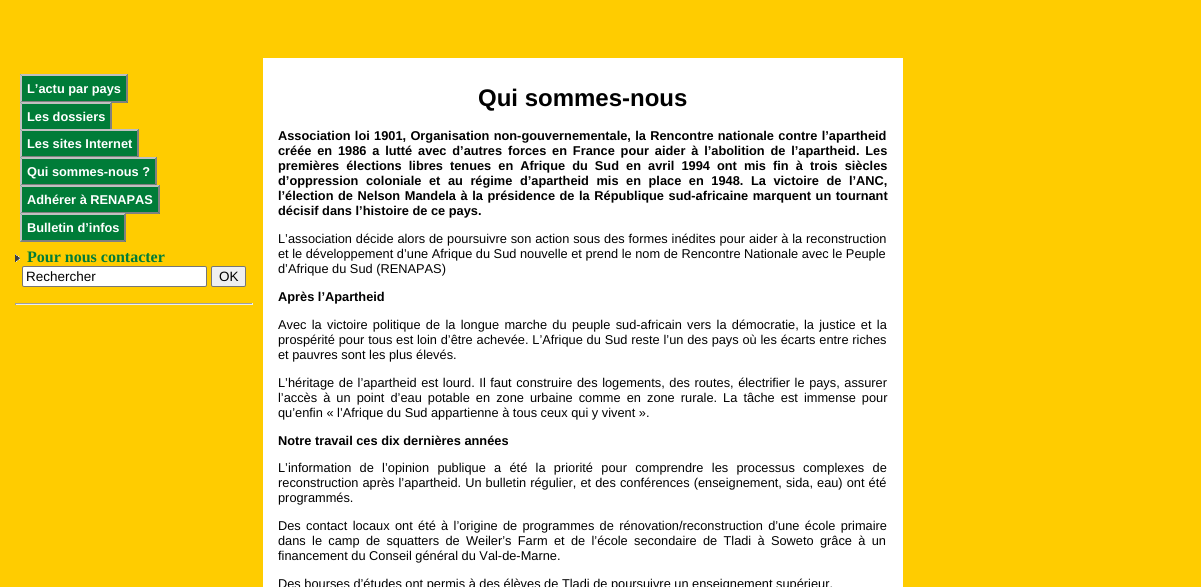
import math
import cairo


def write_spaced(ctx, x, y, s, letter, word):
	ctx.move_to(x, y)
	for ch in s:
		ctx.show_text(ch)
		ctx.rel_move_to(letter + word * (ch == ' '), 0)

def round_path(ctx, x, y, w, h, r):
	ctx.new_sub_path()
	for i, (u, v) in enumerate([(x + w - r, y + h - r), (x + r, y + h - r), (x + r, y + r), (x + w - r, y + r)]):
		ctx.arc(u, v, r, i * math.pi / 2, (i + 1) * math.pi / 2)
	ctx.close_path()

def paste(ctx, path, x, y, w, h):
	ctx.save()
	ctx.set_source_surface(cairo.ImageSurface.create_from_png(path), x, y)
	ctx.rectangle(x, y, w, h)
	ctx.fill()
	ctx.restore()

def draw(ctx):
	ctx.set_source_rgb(1, 0.8, 0)
	ctx.paint()
	ctx.set_source_rgb(0, 0.486, 0.22)
	ctx.rectangle(20, 74, 108, 29)
	ctx.fill()
	ctx.select_font_face('Liberation Sans', cairo.FONT_SLANT_NORMAL, cairo.FONT_WEIGHT_BOLD)
	ctx.set_font_size(12.8)
	ctx.set_source_rgb(1, 1, 1)
	ctx.move_to(27, 93)
	ctx.show_text('L’actu par pays')
	ctx.set_source_rgb(0.753, 0.753, 0.753)
	ctx.new_path()
	ctx.move_to(20, 74)
	ctx.line_to(128, 74)
	ctx.line_to(126, 76)
	ctx.line_to(22, 76)
	ctx.close_path()
	ctx.fill()
	ctx.set_source_rgb(0.502, 0.502, 0.502)
	ctx.new_path()
	ctx.move_to(128, 74)
	ctx.line_to(128, 103)
	ctx.line_to(126, 101)
	ctx.line_to(126, 76)
	ctx.close_path()
	ctx.fill()
	ctx.new_path()
	ctx.move_to(128, 103)
	ctx.line_to(20, 103)
	ctx.line_to(22, 101)
	ctx.line_to(126, 101)
	ctx.close_path()
	ctx.fill()
	ctx.set_source_rgb(0.753, 0.753, 0.753)
	ctx.new_path()
	ctx.move_to(20, 103)
	ctx.line_to(20, 74)
	ctx.line_to(22, 76)
	ctx.line_to(22, 101)
	ctx.close_path()
	ctx.fill()
	ctx.set_source_rgb(0, 0.486, 0.22)
	ctx.rectangle(20, 102, 92, 27)
	ctx.fill()
	ctx.set_source_rgb(1, 1, 1)
	ctx.move_to(27, 121)
	ctx.show_text('Les dossiers')
	ctx.set_source_rgb(0.753, 0.753, 0.753)
	ctx.new_path()
	ctx.move_to(20, 102)
	ctx.line_to(112, 102)
	ctx.line_to(110, 104)
	ctx.line_to(22, 104)
	ctx.close_path()
	ctx.fill()
	ctx.set_source_rgb(0.502, 0.502, 0.502)
	ctx.new_path()
	ctx.move_to(112, 102)
	ctx.line_to(112, 131)
	ctx.line_to(110, 129)
	ctx.line_to(110, 104)
	ctx.close_path()
	ctx.fill()
	ctx.set_source_rgb(0.753, 0.753, 0.753)
	ctx.new_path()
	ctx.move_to(20, 131)
	ctx.line_to(20, 102)
	ctx.line_to(22, 104)
	ctx.line_to(22, 129)
	ctx.close_path()
	ctx.fill()
	ctx.set_source_rgb(0, 0.486, 0.22)
	ctx.rectangle(20, 129, 119, 28)
	ctx.fill()
	ctx.set_source_rgb(1, 1, 1)
	ctx.move_to(27, 148)
	ctx.show_text('Les sites Internet')
	ctx.set_source_rgb(0.753, 0.753, 0.753)
	ctx.new_path()
	ctx.move_to(20, 129)
	ctx.line_to(139, 129)
	ctx.line_to(137, 131)
	ctx.line_to(22, 131)
	ctx.close_path()
	ctx.fill()
	ctx.set_source_rgb(0.502, 0.502, 0.502)
	ctx.new_path()
	ctx.move_to(139, 129)
	ctx.line_to(139, 158)
	ctx.line_to(137, 156)
	ctx.line_to(137, 131)
	ctx.close_path()
	ctx.fill()
	ctx.new_path()
	ctx.move_to(139, 158)
	ctx.line_to(20, 158)
	ctx.line_to(22, 156)
	ctx.line_to(137, 156)
	ctx.close_path()
	ctx.fill()
	ctx.set_source_rgb(0.753, 0.753, 0.753)
	ctx.new_path()
	ctx.move_to(20, 158)
	ctx.line_to(20, 129)
	ctx.line_to(22, 131)
	ctx.line_to(22, 156)
	ctx.close_path()
	ctx.fill()
	ctx.set_source_rgb(0, 0.486, 0.22)
	ctx.rectangle(20, 157, 137, 28)
	ctx.fill()
	ctx.set_source_rgb(1, 1, 1)
	ctx.move_to(27, 176)
	ctx.show_text('Qui sommes-nous ?')
	ctx.set_source_rgb(0.753, 0.753, 0.753)
	ctx.new_path()
	ctx.move_to(20, 157)
	ctx.line_to(157, 157)
	ctx.line_to(155, 159)
	ctx.line_to(22, 159)
	ctx.close_path()
	ctx.fill()
	ctx.set_source_rgb(0.502, 0.502, 0.502)
	ctx.new_path()
	ctx.move_to(157, 157)
	ctx.line_to(157, 186)
	ctx.line_to(155, 184)
	ctx.line_to(155, 159)
	ctx.close_path()
	ctx.fill()
	ctx.new_path()
	ctx.move_to(157, 186)
	ctx.line_to(20, 186)
	ctx.line_to(22, 184)
	ctx.line_to(155, 184)
	ctx.close_path()
	ctx.fill()
	ctx.set_source_rgb(0.753, 0.753, 0.753)
	ctx.new_path()
	ctx.move_to(20, 186)
	ctx.line_to(20, 157)
	ctx.line_to(22, 159)
	ctx.line_to(22, 184)
	ctx.close_path()
	ctx.fill()
	ctx.set_source_rgb(0, 0.486, 0.22)
	ctx.rectangle(20, 185, 140, 29)
	ctx.fill()
	ctx.set_source_rgb(1, 1, 1)
	ctx.move_to(27, 204)
	ctx.show_text('Adhérer à RENAPAS')
	ctx.set_source_rgb(0.753, 0.753, 0.753)
	ctx.new_path()
	ctx.move_to(20, 185)
	ctx.line_to(160, 185)
	ctx.line_to(158, 187)
	ctx.line_to(22, 187)
	ctx.close_path()
	ctx.fill()
	ctx.set_source_rgb(0.502, 0.502, 0.502)
	ctx.new_path()
	ctx.move_to(160, 185)
	ctx.line_to(160, 214)
	ctx.line_to(158, 212)
	ctx.line_to(158, 187)
	ctx.close_path()
	ctx.fill()
	ctx.new_path()
	ctx.move_to(160, 214)
	ctx.line_to(20, 214)
	ctx.line_to(22, 212)
	ctx.line_to(158, 212)
	ctx.close_path()
	ctx.fill()
	ctx.set_source_rgb(0.753, 0.753, 0.753)
	ctx.new_path()
	ctx.move_to(20, 214)
	ctx.line_to(20, 185)
	ctx.line_to(22, 187)
	ctx.line_to(22, 212)
	ctx.close_path()
	ctx.fill()
	ctx.set_source_rgb(0, 0.486, 0.22)
	ctx.rectangle(20, 213, 106, 29)
	ctx.fill()
	ctx.set_source_rgb(1, 1, 1)
	ctx.move_to(27, 232)
	ctx.show_text('Bulletin d’infos')
	ctx.set_source_rgb(0.753, 0.753, 0.753)
	ctx.new_path()
	ctx.move_to(20, 213)
	ctx.line_to(126, 213)
	ctx.line_to(124, 215)
	ctx.line_to(22, 215)
	ctx.close_path()
	ctx.fill()
	ctx.set_source_rgb(0.502, 0.502, 0.502)
	ctx.new_path()
	ctx.move_to(126, 213)
	ctx.line_to(126, 242)
	ctx.line_to(124, 240)
	ctx.line_to(124, 215)
	ctx.close_path()
	ctx.fill()
	ctx.new_path()
	ctx.move_to(126, 242)
	ctx.line_to(20, 242)
	ctx.line_to(22, 240)
	ctx.line_to(124, 240)
	ctx.close_path()
	ctx.fill()
	ctx.set_source_rgb(0.753, 0.753, 0.753)
	ctx.new_path()
	ctx.move_to(20, 242)
	ctx.line_to(20, 213)
	ctx.line_to(22, 215)
	ctx.line_to(22, 240)
	ctx.close_path()
	ctx.fill()
	paste(ctx, 'media/1.png', 15, 254, 5, 8)
	ctx.select_font_face('Liberation Serif', cairo.FONT_SLANT_NORMAL, cairo.FONT_WEIGHT_BOLD)
	ctx.set_font_size(16)
	ctx.set_source_rgb(0, 0.486, 0.22)
	ctx.move_to(27, 262)
	ctx.show_text('Pour nous contacter')
	ctx.set_source_rgb(1, 1, 1)
	round_path(ctx, 22.5, 266.5, 184, 20, 1.5)
	ctx.fill_preserve()
	ctx.set_source_rgb(0.463, 0.463, 0.463)
	ctx.set_line_width(1)
	ctx.stroke()
	ctx.select_font_face('Liberation Sans')
	ctx.set_font_size(13.5)
	ctx.set_source_rgb(0, 0, 0)
	ctx.move_to(26, 281)
	ctx.show_text('Rechercher')
	ctx.set_source_rgb(0.937, 0.937, 0.937)
	round_path(ctx, 211.5, 266.5, 34, 20, 1.5)
	ctx.fill_preserve()
	ctx.set_source_rgb(0.463, 0.463, 0.463)
	ctx.stroke()
	ctx.set_source_rgb(0, 0, 0)
	ctx.move_to(219, 281)
	ctx.show_text('OK')
	ctx.set_source_rgb(0.624, 0.624, 0.624)
	ctx.rectangle(15, 303, 238, 1)
	ctx.fill()
	ctx.set_source_rgb(0.933, 0.933, 0.933)
	ctx.rectangle(252, 303, 1, 2)
	ctx.rectangle(15, 304, 238, 1)
	ctx.fill()
	ctx.set_source_rgb(0.624, 0.624, 0.624)
	ctx.rectangle(15, 303, 1, 2)
	ctx.fill()
	ctx.set_source_rgb(1, 1, 1)
	ctx.rectangle(263, 58, 640, 529)
	ctx.fill()
	ctx.select_font_face('Liberation Sans', cairo.FONT_SLANT_NORMAL, cairo.FONT_WEIGHT_BOLD)
	ctx.set_font_size(24)
	ctx.set_source_rgb(0, 0, 0)
	ctx.move_to(478, 106)
	ctx.show_text('Qui sommes-nous')
	ctx.set_font_size(12.8)
	write_spaced(ctx, 278, 140, 'Association loi 1901, Organisation non-gouvernementale, la Rencontre nationale contre l’apartheid', 0, 0.75)
	write_spaced(ctx, 278, 155, 'créée en 1986 a lutté avec d’autres forces en France pour aider à l’abolition de l’apartheid. Les', 0, 2.25)
	write_spaced(ctx, 278, 170, 'premières élections libres tenues en Afrique du Sud en avril 1994 ont mis fin à trois siècles', 0, 3.5)
	write_spaced(ctx, 278, 185, 'd’oppression coloniale et au régime d’apartheid mis en place en 1948. La victoire de l’ANC,', 0, 4)
	write_spaced(ctx, 278, 200, 'l’élection de Nelson Mandela à la présidence de la République sud-africaine marquent un tournant', 0, 1)
	ctx.move_to(278, 215)
	ctx.show_text('décisif dans l’histoire de ce pays.')
	ctx.select_font_face('Liberation Sans')
	write_spaced(ctx, 278, 243, 'L’association décide alors de poursuivre son action sous des formes inédites pour aider à la reconstruction', 0, 0.3)
	ctx.move_to(278, 258)
	ctx.show_text('et le développement d’une Afrique du Sud nouvelle et prend le nom de Rencontre Nationale avec le Peuple')
	ctx.move_to(278, 273)
	ctx.show_text('d’Afrique du Sud (RENAPAS)')
	ctx.select_font_face('Liberation Sans', cairo.FONT_SLANT_NORMAL, cairo.FONT_WEIGHT_BOLD)
	ctx.move_to(278, 301)
	ctx.show_text('Après l’Apartheid')
	ctx.select_font_face('Liberation Sans')
	write_spaced(ctx, 278, 329, 'Avec la victoire politique de la longue marche du peuple sud-africain vers la démocratie, la justice et la', 0, 1.75)
	write_spaced(ctx, 278, 344, 'prospérité pour tous est loin d’être achevée. L’Afrique du Sud reste l’un des pays où les écarts entre riches', 0, 0.25)
	ctx.move_to(278, 359)
	ctx.show_text('et pauvres sont les plus élevés.')
	write_spaced(ctx, 278, 387, 'L’héritage de l’apartheid est lourd. Il faut construire des logements, des routes, électrifier le pays, assurer', 0, 1)
	write_spaced(ctx, 278, 402, 'l’accès à un point d’eau potable en zone urbaine comme en zone rurale. La tâche est immense pour', 0, 2.5)
	ctx.move_to(278, 417)
	ctx.show_text('qu’enfin « l’Afrique du Sud appartienne à tous ceux qui y vivent ».')
	ctx.select_font_face('Liberation Sans', cairo.FONT_SLANT_NORMAL, cairo.FONT_WEIGHT_BOLD)
	ctx.move_to(278, 445)
	ctx.show_text('Notre travail ces dix dernières années')
	ctx.select_font_face('Liberation Sans')
	write_spaced(ctx, 278, 472, 'L’information de l’opinion publique a été la priorité pour comprendre les processus complexes de', 0, 4.75)
	write_spaced(ctx, 278, 487, 'reconstruction après l’apartheid. Un bulletin régulier, et des conférences (enseignement, sida, eau) ont été', 0, 0.5)
	ctx.move_to(278, 502)
	ctx.show_text('programmés.')
	write_spaced(ctx, 278, 530, 'Des contact locaux ont été à l’origine de programmes de rénovation/reconstruction d’une école primaire', 0, 1.75)
	write_spaced(ctx, 278, 545, 'dans le camp de squatters de Weiler’s Farm et de l’école secondaire de Tladi à Soweto grâce à un', 0, 2.75)
	ctx.move_to(278, 560)
	ctx.show_text('financement du Conseil général du Val-de-Marne.')
	ctx.move_to(278, 588)
	ctx.show_text('Des bourses d’études ont permis à des élèves de Tladi de poursuivre un enseignement supérieur.')


surface = cairo.ImageSurface(cairo.FORMAT_RGB24, 1201, 587)
ctx = cairo.Context(surface)
options = cairo.FontOptions()
options.set_hint_metrics(cairo.HINT_METRICS_OFF)
options.set_hint_style(cairo.HINT_STYLE_NONE)
ctx.set_font_options(options)
ctx.set_miter_limit(4)
draw(ctx)
surface.write_to_png('image.png')
